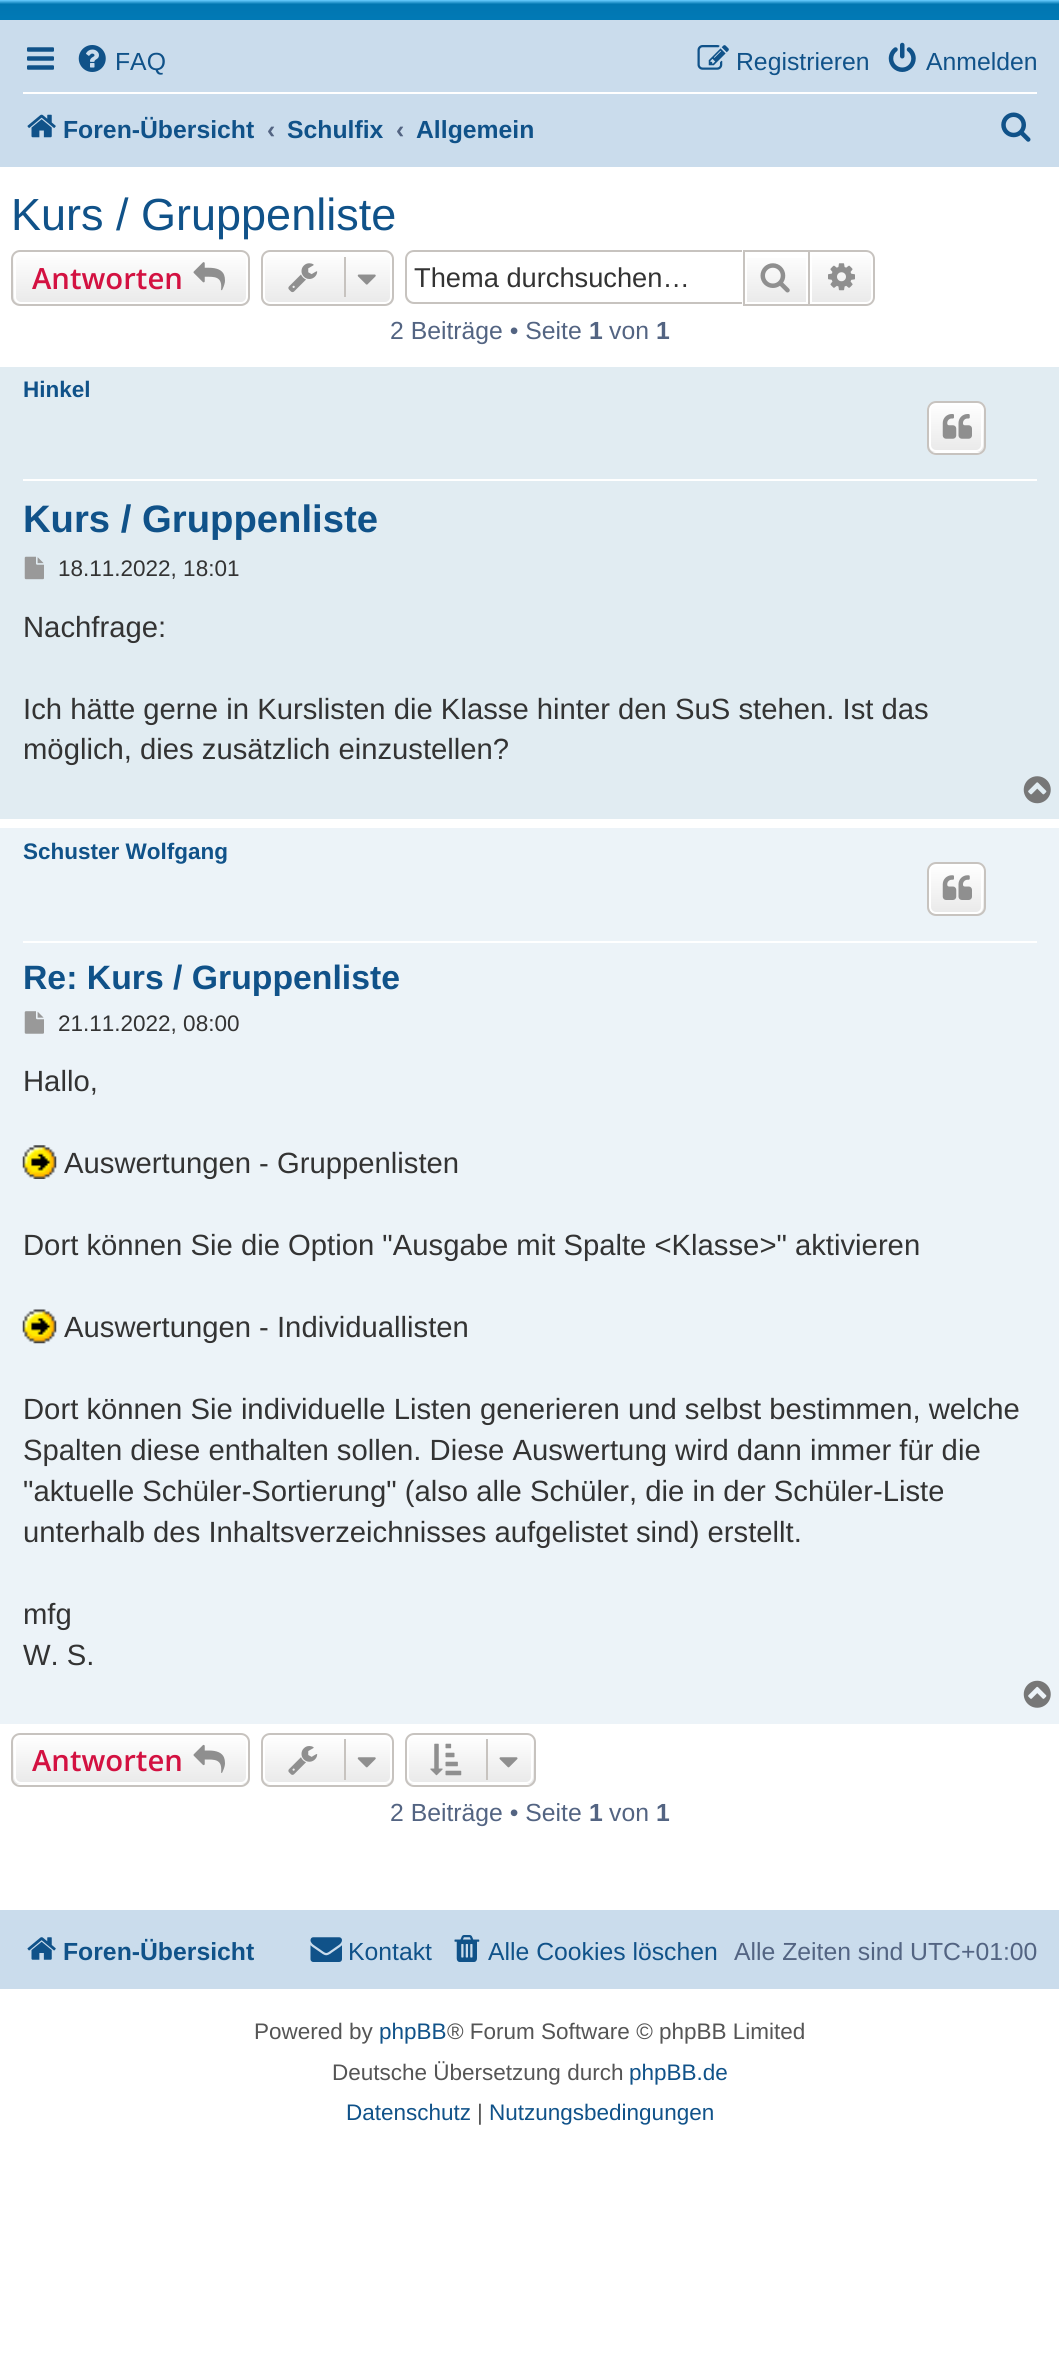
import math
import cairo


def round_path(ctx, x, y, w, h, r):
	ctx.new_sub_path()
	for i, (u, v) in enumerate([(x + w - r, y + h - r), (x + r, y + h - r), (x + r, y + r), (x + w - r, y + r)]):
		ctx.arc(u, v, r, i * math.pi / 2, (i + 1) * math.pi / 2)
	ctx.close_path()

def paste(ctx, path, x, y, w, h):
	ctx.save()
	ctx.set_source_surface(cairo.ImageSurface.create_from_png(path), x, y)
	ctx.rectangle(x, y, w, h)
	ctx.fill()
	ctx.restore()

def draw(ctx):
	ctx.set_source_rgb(1, 1, 1)
	ctx.paint()
	gradient = cairo.LinearGradient(530, 0, 530, 207)
	gradient.add_color_stop_rgba(0, 0.416, 0.808, 1, 1)
	gradient.add_color_stop_rgba(0.02, 0, 0.463, 0.694, 1)
	gradient.add_color_stop_rgba(1, 0.071, 0.639, 0.922, 1)
	ctx.set_source(gradient)
	ctx.rectangle(0, 0, 1059, 20)
	ctx.fill()
	ctx.set_source_rgb(0.792, 0.863, 0.922)
	ctx.rectangle(0, 20, 1059, 147)
	ctx.fill()
	paste(ctx, 'media/1.png', 27, 47, 27, 23)
	paste(ctx, 'media/2.png', 78, 45, 28, 27)
	ctx.select_font_face('Liberation Sans')
	ctx.set_font_size(24.75)
	ctx.set_source_rgb(0.063, 0.322, 0.537)
	ctx.move_to(115, 70)
	ctx.show_text('FAQ')
	paste(ctx, 'media/3.png', 697, 45, 32, 25)
	ctx.move_to(736, 70)
	ctx.show_text('Registrieren')
	paste(ctx, 'media/4.png', 888, 42, 28, 30)
	ctx.move_to(926, 70)
	ctx.show_text('Anmelden')
	ctx.set_source_rgb(1, 1, 1)
	ctx.rectangle(23, 92, 1014, 2)
	ctx.fill()
	paste(ctx, 'media/5.png', 27, 114, 29, 24)
	ctx.select_font_face('Liberation Sans', cairo.FONT_SLANT_NORMAL, cairo.FONT_WEIGHT_BOLD)
	ctx.set_source_rgb(0.063, 0.322, 0.537)
	ctx.move_to(63, 138)
	ctx.show_text('Foren-Übersicht')
	ctx.set_source_rgb(0.325, 0.392, 0.51)
	ctx.move_to(267, 138)
	ctx.show_text('‹')
	ctx.set_source_rgb(0.063, 0.322, 0.537)
	ctx.move_to(287, 138)
	ctx.show_text('Schulfix')
	ctx.set_source_rgb(0.325, 0.392, 0.51)
	ctx.move_to(396, 138)
	ctx.show_text('‹')
	ctx.set_source_rgb(0.063, 0.322, 0.537)
	ctx.move_to(416, 138)
	ctx.show_text('Allgemein')
	paste(ctx, 'media/6.png', 1001, 112, 30, 30)
	ctx.select_font_face('Liberation Sans')
	ctx.set_font_size(45)
	ctx.move_to(11, 230)
	ctx.show_text('Kurs / Gruppenliste')
	ctx.save()
	round_path(ctx, 11, 250, 239, 56, 9)
	ctx.clip()
	gradient = cairo.LinearGradient(131, 252, 131, 304)
	gradient.add_color_stop_rgba(0, 1, 1, 1, 1)
	gradient.add_color_stop_rgba(1, 0.914, 0.914, 0.914, 1)
	ctx.set_source(gradient)
	ctx.rectangle(11, 252, 239, 52)
	ctx.fill()
	ctx.restore()
	round_path(ctx, 15, 253, 232, 50, 6)
	ctx.set_source_rgb(1, 1, 1)
	ctx.stroke()
	round_path(ctx, 12, 251, 237, 54, 8)
	ctx.set_source_rgb(0.78, 0.765, 0.749)
	ctx.stroke()
	ctx.select_font_face('Open Sans SemiBold')
	ctx.set_font_size(29.25)
	ctx.set_source_rgb(0.827, 0.067, 0.255)
	ctx.move_to(32, 289)
	ctx.show_text('Antworten')
	paste(ctx, 'media/7.png', 193, 262, 32, 29)
	ctx.save()
	round_path(ctx, 261, 250, 133, 56, 9)
	ctx.clip()
	gradient = cairo.LinearGradient(327, 252, 327, 304)
	gradient.add_color_stop_rgba(0, 1, 1, 1, 1)
	gradient.add_color_stop_rgba(1, 0.914, 0.914, 0.914, 1)
	ctx.set_source(gradient)
	ctx.rectangle(261, 252, 133, 52)
	ctx.fill()
	ctx.restore()
	round_path(ctx, 264, 253, 127, 50, 6)
	ctx.set_source_rgb(1, 1, 1)
	ctx.stroke()
	round_path(ctx, 262, 251, 131, 54, 8)
	ctx.set_source_rgb(0.78, 0.765, 0.749)
	ctx.stroke()
	paste(ctx, 'media/8.png', 288, 263, 30, 30)
	ctx.rectangle(344, 257, 2, 40)
	ctx.fill()
	paste(ctx, 'media/9.png', 357, 274, 19, 11)
	ctx.set_fill_rule(cairo.FILL_RULE_EVEN_ODD)
	ctx.new_path()
	ctx.move_to(414, 250)
	ctx.line_to(742, 250)
	ctx.line_to(742, 304)
	ctx.line_to(414, 304)
	ctx.curve_to(409, 304, 405, 300, 405, 295)
	ctx.line_to(405, 259)
	ctx.curve_to(405, 254, 409, 250, 414, 250)
	ctx.close_path()
	ctx.move_to(414, 252)
	ctx.line_to(742, 252)
	ctx.line_to(742, 302)
	ctx.line_to(414, 302)
	ctx.curve_to(410, 302, 407, 298, 407, 295)
	ctx.line_to(407, 259)
	ctx.curve_to(407, 255, 410, 252, 414, 252)
	ctx.close_path()
	ctx.fill()
	ctx.select_font_face('Liberation Sans')
	ctx.set_font_size(27.25)
	ctx.set_source_rgb(0.2, 0.2, 0.2)
	ctx.move_to(414, 287)
	ctx.show_text('Thema durchsuchen…')
	gradient = cairo.LinearGradient(776, 252, 776, 304)
	gradient.add_color_stop_rgba(0, 1, 1, 1, 1)
	gradient.add_color_stop_rgba(1, 0.914, 0.914, 0.914, 1)
	ctx.set_source(gradient)
	ctx.rectangle(747, 258, 59, 44)
	ctx.fill()
	ctx.rectangle(744, 251, 65, 54)
	ctx.set_source_rgb(0.78, 0.765, 0.749)
	ctx.stroke()
	paste(ctx, 'media/10.png', 760, 263, 30, 30)
	gradient = cairo.LinearGradient(842, 252, 842, 304)
	gradient.add_color_stop_rgba(0, 1, 1, 1, 1)
	gradient.add_color_stop_rgba(1, 0.914, 0.914, 0.914, 1)
	ctx.set_source(gradient)
	ctx.new_path()
	ctx.move_to(811, 253)
	ctx.line_to(866, 253)
	ctx.curve_to(869.5, 253, 872, 255.5, 872, 259)
	ctx.line_to(872, 297)
	ctx.curve_to(872, 300.5, 869.5, 303, 866, 303)
	ctx.line_to(811, 303)
	ctx.close_path()
	ctx.fill_preserve()
	ctx.set_source_rgb(1, 1, 1)
	ctx.stroke()
	ctx.set_source_rgb(0.78, 0.765, 0.749)
	ctx.new_path()
	ctx.move_to(810, 250)
	ctx.line_to(866, 250)
	ctx.curve_to(871, 250, 875, 254, 875, 259)
	ctx.line_to(875, 297)
	ctx.curve_to(875, 302, 871, 306, 866, 306)
	ctx.line_to(810, 306)
	ctx.close_path()
	ctx.move_to(810, 252)
	ctx.line_to(866, 252)
	ctx.curve_to(870, 252, 873, 255, 873, 259)
	ctx.line_to(873, 297)
	ctx.curve_to(873, 301, 870, 304, 866, 304)
	ctx.line_to(810, 304)
	ctx.close_path()
	ctx.fill()
	paste(ctx, 'media/11.png', 828, 263, 27, 28)
	ctx.set_font_size(24.75)
	ctx.set_source_rgb(0.325, 0.392, 0.51)
	ctx.move_to(390, 339)
	ctx.show_text('2 Beiträge • Seite')
	ctx.select_font_face('Liberation Sans', cairo.FONT_SLANT_NORMAL, cairo.FONT_WEIGHT_BOLD)
	ctx.move_to(589, 339)
	ctx.show_text('1')
	ctx.select_font_face('Liberation Sans')
	ctx.move_to(609, 339)
	ctx.show_text('von')
	ctx.select_font_face('Liberation Sans', cairo.FONT_SLANT_NORMAL, cairo.FONT_WEIGHT_BOLD)
	ctx.move_to(656, 339)
	ctx.show_text('1')
	ctx.set_source_rgb(0.882, 0.922, 0.949)
	ctx.rectangle(0, 367, 1059, 452)
	ctx.fill()
	ctx.set_source_rgb(1, 1, 1)
	ctx.rectangle(23, 479, 1014, 2)
	ctx.fill()
	ctx.set_font_size(22.5)
	ctx.set_source_rgb(0.063, 0.322, 0.537)
	ctx.move_to(23, 397)
	ctx.show_text('Hinkel')
	ctx.save()
	ctx.set_fill_rule(cairo.FILL_RULE_WINDING)
	round_path(ctx, 927, 401, 59, 54, 9)
	ctx.clip()
	gradient = cairo.LinearGradient(956, 403, 956, 452)
	gradient.add_color_stop_rgba(0, 1, 1, 1, 1)
	gradient.add_color_stop_rgba(1, 0.914, 0.914, 0.914, 1)
	ctx.set_source(gradient)
	ctx.rectangle(927, 403, 59, 49)
	ctx.fill()
	gradient = cairo.LinearGradient(956, 452, 956, 502)
	gradient.add_color_stop_rgba(0, 1, 1, 1, 1)
	gradient.add_color_stop_rgba(1, 0.914, 0.914, 0.914, 1)
	ctx.set_source(gradient)
	ctx.rectangle(927, 452, 59, 3)
	ctx.fill()
	ctx.restore()
	round_path(ctx, 930, 404, 52, 47, 6)
	ctx.set_source_rgb(1, 1, 1)
	ctx.stroke()
	round_path(ctx, 928, 402, 57, 52, 8)
	ctx.set_source_rgb(0.78, 0.765, 0.749)
	ctx.stroke()
	paste(ctx, 'media/12.png', 942, 414, 30, 25)
	ctx.set_font_size(38.25)
	ctx.set_source_rgb(0.063, 0.322, 0.537)
	ctx.move_to(23, 532)
	ctx.show_text('Kurs / Gruppenliste')
	paste(ctx, 'media/13.png', 24, 556, 20, 24)
	ctx.select_font_face('Liberation Sans')
	ctx.set_font_size(22.5)
	ctx.set_source_rgb(0.2, 0.2, 0.2)
	ctx.move_to(58, 576)
	ctx.show_text('18.11.2022, 18:01')
	ctx.set_font_size(29.25)
	for x, y, s in [
		(23, 637, 'Nachfrage:'),
		(23, 719, 'Ich hätte gerne in Kurslisten die Klasse hinter den SuS stehen. Ist das'),
		(23, 759, 'möglich, dies zusätzlich einzustellen?'),
	]:
		ctx.move_to(x, y)
		ctx.show_text(s)
	paste(ctx, 'media/14.png', 1023, 776, 28, 28)
	ctx.set_source_rgb(0.925, 0.953, 0.969)
	ctx.rectangle(0, 828, 1059, 896)
	ctx.fill()
	ctx.set_source_rgb(1, 1, 1)
	ctx.rectangle(23, 941, 1014, 2)
	ctx.fill()
	ctx.select_font_face('Liberation Sans', cairo.FONT_SLANT_NORMAL, cairo.FONT_WEIGHT_BOLD)
	ctx.set_font_size(22.5)
	ctx.set_source_rgb(0.063, 0.322, 0.537)
	ctx.move_to(23, 859)
	ctx.show_text('Schuster Wolfgang')
	ctx.save()
	ctx.set_fill_rule(cairo.FILL_RULE_WINDING)
	round_path(ctx, 927, 862, 59, 54, 9)
	ctx.clip()
	gradient = cairo.LinearGradient(956, 864, 956, 914)
	gradient.add_color_stop_rgba(0, 1, 1, 1, 1)
	gradient.add_color_stop_rgba(1, 0.914, 0.914, 0.914, 1)
	ctx.set_source(gradient)
	ctx.rectangle(927, 864, 59, 50)
	ctx.fill()
	ctx.restore()
	round_path(ctx, 930, 865, 52, 48, 6)
	ctx.set_source_rgb(1, 1, 1)
	ctx.stroke()
	round_path(ctx, 928, 863, 57, 52, 8)
	ctx.set_source_rgb(0.78, 0.765, 0.749)
	ctx.stroke()
	paste(ctx, 'media/15.png', 942, 875, 30, 25)
	ctx.set_font_size(33.75)
	ctx.set_source_rgb(0.063, 0.322, 0.537)
	ctx.move_to(23, 989)
	ctx.show_text('Re: Kurs / Gruppenliste')
	paste(ctx, 'media/16.png', 24, 1011, 20, 23)
	ctx.select_font_face('Liberation Sans')
	ctx.set_font_size(22.5)
	ctx.set_source_rgb(0.2, 0.2, 0.2)
	ctx.move_to(58, 1031)
	ctx.show_text('21.11.2022, 08:00')
	ctx.set_font_size(29.25)
	ctx.move_to(23, 1091)
	ctx.show_text('Hallo,')
	paste(ctx, 'media/17.png', 22, 1145, 35, 34)
	ctx.move_to(64, 1173)
	ctx.show_text('Auswertungen - Gruppenlisten')
	ctx.move_to(23, 1255)
	ctx.show_text('Dort können Sie die Option "Ausgabe mit Spalte <Klasse>" aktivieren')
	paste(ctx, 'media/18.png', 22, 1309, 35, 35)
	for x, y, s in [
		(64, 1337, 'Auswertungen - Individuallisten'),
		(23, 1419, 'Dort können Sie individuelle Listen generieren und selbst bestimmen, welche'),
		(23, 1460, 'Spalten diese enthalten sollen. Diese Auswertung wird dann immer für die'),
		(23, 1501, '"aktuelle Schüler-Sortierung" (also alle Schüler, die in der Schüler-Liste'),
		(23, 1542, 'unterhalb des Inhaltsverzeichnisses aufgelistet sind) erstellt.'),
		(23, 1624, 'mfg'),
		(23, 1665, 'W. S.'),
	]:
		ctx.move_to(x, y)
		ctx.show_text(s)
	paste(ctx, 'media/19.png', 1023, 1680, 28, 28)
	ctx.save()
	ctx.set_fill_rule(cairo.FILL_RULE_WINDING)
	round_path(ctx, 11, 1733, 239, 54, 9)
	ctx.clip()
	gradient = cairo.LinearGradient(131, 1735, 131, 1784)
	gradient.add_color_stop_rgba(0, 1, 1, 1, 1)
	gradient.add_color_stop_rgba(1, 0.914, 0.914, 0.914, 1)
	ctx.set_source(gradient)
	ctx.rectangle(11, 1735, 239, 49)
	ctx.fill()
	ctx.restore()
	round_path(ctx, 15, 1736, 232, 47, 6)
	ctx.set_source_rgb(1, 1, 1)
	ctx.stroke()
	round_path(ctx, 12, 1734, 237, 52, 8)
	ctx.set_source_rgb(0.78, 0.765, 0.749)
	ctx.stroke()
	ctx.select_font_face('Open Sans SemiBold')
	ctx.set_source_rgb(0.827, 0.067, 0.255)
	ctx.move_to(32, 1771)
	ctx.show_text('Antworten')
	paste(ctx, 'media/20.png', 193, 1744, 32, 29)
	ctx.save()
	ctx.set_fill_rule(cairo.FILL_RULE_WINDING)
	round_path(ctx, 261, 1733, 133, 54, 9)
	ctx.clip()
	gradient = cairo.LinearGradient(327, 1735, 327, 1784)
	gradient.add_color_stop_rgba(0, 1, 1, 1, 1)
	gradient.add_color_stop_rgba(1, 0.914, 0.914, 0.914, 1)
	ctx.set_source(gradient)
	ctx.rectangle(261, 1735, 133, 49)
	ctx.fill()
	ctx.restore()
	round_path(ctx, 264, 1736, 127, 47, 6)
	ctx.set_source_rgb(1, 1, 1)
	ctx.stroke()
	round_path(ctx, 262, 1734, 131, 52, 8)
	ctx.set_source_rgb(0.78, 0.765, 0.749)
	ctx.stroke()
	paste(ctx, 'media/21.png', 288, 1746, 30, 29)
	ctx.rectangle(344, 1739, 2, 41)
	ctx.fill()
	paste(ctx, 'media/22.png', 357, 1757, 19, 11)
	ctx.save()
	ctx.set_fill_rule(cairo.FILL_RULE_WINDING)
	round_path(ctx, 405, 1733, 131, 54, 9)
	ctx.clip()
	gradient = cairo.LinearGradient(470, 1735, 470, 1784)
	gradient.add_color_stop_rgba(0, 1, 1, 1, 1)
	gradient.add_color_stop_rgba(1, 0.914, 0.914, 0.914, 1)
	ctx.set_source(gradient)
	ctx.rectangle(405, 1735, 131, 49)
	ctx.fill()
	ctx.restore()
	round_path(ctx, 408, 1736, 124, 47, 6)
	ctx.set_source_rgb(1, 1, 1)
	ctx.stroke()
	round_path(ctx, 406, 1734, 129, 52, 8)
	ctx.set_source_rgb(0.78, 0.765, 0.749)
	ctx.stroke()
	paste(ctx, 'media/23.png', 430, 1743, 32, 33)
	ctx.rectangle(486, 1739, 2, 41)
	ctx.fill()
	paste(ctx, 'media/24.png', 499, 1757, 19, 11)
	ctx.select_font_face('Liberation Sans')
	ctx.set_font_size(24.75)
	ctx.set_source_rgb(0.325, 0.392, 0.51)
	ctx.move_to(390, 1821)
	ctx.show_text('2 Beiträge • Seite')
	ctx.select_font_face('Liberation Sans', cairo.FONT_SLANT_NORMAL, cairo.FONT_WEIGHT_BOLD)
	ctx.move_to(589, 1821)
	ctx.show_text('1')
	ctx.select_font_face('Liberation Sans')
	ctx.move_to(609, 1821)
	ctx.show_text('von')
	ctx.select_font_face('Liberation Sans', cairo.FONT_SLANT_NORMAL, cairo.FONT_WEIGHT_BOLD)
	ctx.move_to(656, 1821)
	ctx.show_text('1')
	ctx.set_source_rgb(0.792, 0.863, 0.922)
	ctx.rectangle(0, 1910, 1059, 79)
	ctx.fill()
	paste(ctx, 'media/25.png', 27, 1937, 29, 23)
	ctx.set_source_rgb(0.063, 0.322, 0.537)
	ctx.move_to(63, 1960)
	ctx.show_text('Foren-Übersicht')
	paste(ctx, 'media/26.png', 310, 1937, 32, 25)
	ctx.select_font_face('Liberation Sans')
	ctx.move_to(348, 1960)
	ctx.show_text('Kontakt')
	paste(ctx, 'media/27.png', 454, 1935, 26, 27)
	ctx.move_to(488, 1960)
	ctx.show_text('Alle Cookies löschen')
	ctx.set_source_rgb(0.325, 0.392, 0.51)
	ctx.move_to(734, 1960)
	ctx.show_text('Alle Zeiten sind UTC+01:00')
	ctx.set_font_size(22.5)
	ctx.set_source_rgb(0.333, 0.333, 0.333)
	ctx.move_to(254, 2039)
	ctx.show_text('Powered by')
	ctx.set_source_rgb(0.063, 0.322, 0.537)
	ctx.move_to(379, 2039)
	ctx.show_text('phpBB')
	ctx.set_source_rgb(0.333, 0.333, 0.333)
	ctx.move_to(447, 2039)
	ctx.show_text('® Forum Software © phpBB Limited')
	ctx.move_to(332, 2080)
	ctx.show_text('Deutsche Übersetzung durch')
	ctx.set_source_rgb(0.063, 0.322, 0.537)
	ctx.move_to(629, 2080)
	ctx.show_text('phpBB.de')
	ctx.move_to(346, 2120)
	ctx.show_text('Datenschutz')
	ctx.set_source_rgb(0.333, 0.333, 0.333)
	ctx.move_to(477, 2120)
	ctx.show_text('|')
	ctx.set_source_rgb(0.063, 0.322, 0.537)
	ctx.move_to(489, 2120)
	ctx.show_text('Nutzungsbedingungen')


surface = cairo.ImageSurface(cairo.FORMAT_RGB24, 1059, 2371)
ctx = cairo.Context(surface)
options = cairo.FontOptions()
options.set_hint_metrics(cairo.HINT_METRICS_OFF)
options.set_hint_style(cairo.HINT_STYLE_NONE)
ctx.set_font_options(options)
ctx.set_miter_limit(4)
draw(ctx)
surface.write_to_png('image.png')
